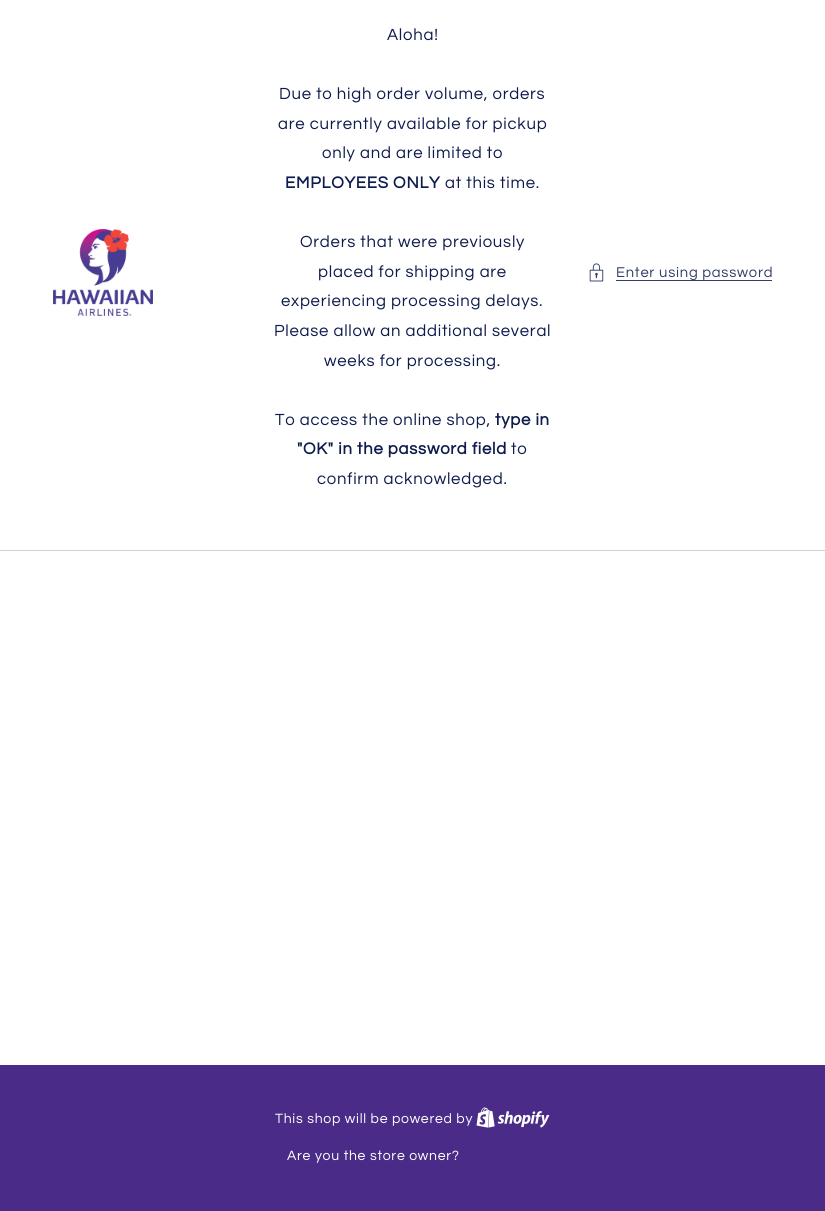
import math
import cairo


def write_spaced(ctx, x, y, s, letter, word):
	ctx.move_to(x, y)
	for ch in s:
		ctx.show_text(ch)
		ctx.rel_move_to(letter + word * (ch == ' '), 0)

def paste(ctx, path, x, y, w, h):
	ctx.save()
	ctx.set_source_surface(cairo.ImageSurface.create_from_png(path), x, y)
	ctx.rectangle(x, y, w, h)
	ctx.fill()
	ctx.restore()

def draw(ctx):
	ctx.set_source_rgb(1, 1, 1)
	ctx.paint()
	paste(ctx, 'media/1.png', 53, 229, 100, 87)
	ctx.select_font_face('Questrial')
	ctx.set_font_size(16.75)
	ctx.set_source_rgb(0.055, 0.106, 0.302)
	for x, y, s in [
		(387, 40, 'Aloha!'),
		(279, 99, 'Due to high order volume, orders'),
		(278, 129, 'are currently available for pickup'),
		(322, 158, 'only and are limited to'),
	]:
		write_spaced(ctx, x, y, s, 0.75, 0)
	ctx.select_font_face('Questrial', cairo.FONT_SLANT_NORMAL, cairo.FONT_WEIGHT_BOLD)
	write_spaced(ctx, 285, 188, 'EMPLOYEES ONLY', 0.75, 0)
	ctx.select_font_face('Questrial')
	for x, y, s in [
		(445, 188, 'at this time.'),
		(300, 247, 'Orders that were previously'),
		(318, 277, 'placed for shipping are'),
		(281, 306, 'experiencing processing delays.'),
		(274, 336, 'Please allow an additional several'),
		(324, 366, 'weeks for processing.'),
		(275, 425, 'To access the online shop,'),
	]:
		write_spaced(ctx, x, y, s, 0.75, 0)
	ctx.select_font_face('Questrial', cairo.FONT_SLANT_NORMAL, cairo.FONT_WEIGHT_BOLD)
	write_spaced(ctx, 495, 425, 'type in', 0.75, 0)
	write_spaced(ctx, 297, 454, '"OK" in the password field', 0.75, 0)
	ctx.select_font_face('Questrial')
	write_spaced(ctx, 511, 454, 'to', 0.75, 0)
	write_spaced(ctx, 317, 484, 'confirm acknowledged.', 0.75, 0)
	paste(ctx, 'media/2.png', 589, 263, 15, 19)
	ctx.set_font_size(14.75)
	ctx.set_source_rgb(0.196, 0.239, 0.408)
	write_spaced(ctx, 616, 277, 'Enter using password', 0.75, 0)
	ctx.rectangle(616, 280, 156, 1)
	ctx.fill()
	ctx.set_source_rgb(0.812, 0.82, 0.859)
	ctx.rectangle(0, 550, 825, 1)
	ctx.fill()
	ctx.set_source_rgb(0.29, 0.173, 0.533)
	ctx.rectangle(0, 1065, 825, 146)
	ctx.fill()
	ctx.set_font_size(14)
	ctx.set_source_rgb(1, 1, 1)
	write_spaced(ctx, 275, 1123, 'This shop will be powered by', 0.75, 0)
	paste(ctx, 'media/3.png', 476, 1107, 74, 21)
	write_spaced(ctx, 287, 1160, 'Are you the store owner?', 0.75, 0)


surface = cairo.ImageSurface(cairo.FORMAT_RGB24, 825, 1211)
ctx = cairo.Context(surface)
options = cairo.FontOptions()
options.set_hint_metrics(cairo.HINT_METRICS_OFF)
options.set_hint_style(cairo.HINT_STYLE_NONE)
ctx.set_font_options(options)
ctx.set_miter_limit(4)
draw(ctx)
surface.write_to_png('image.png')
